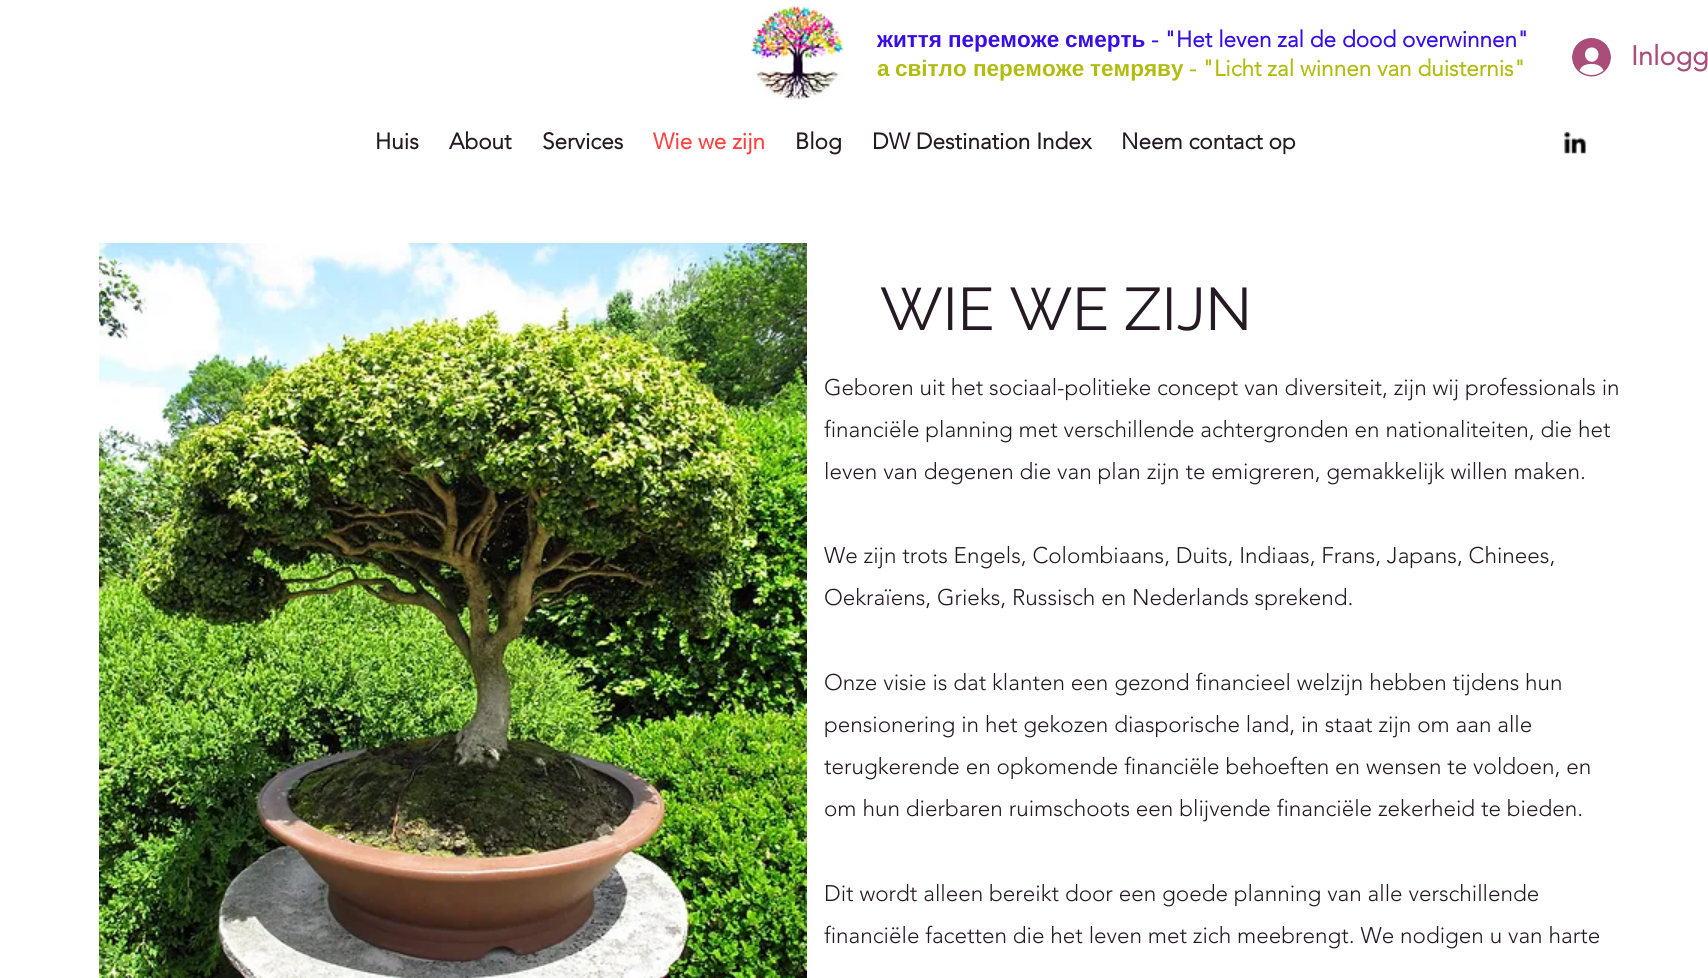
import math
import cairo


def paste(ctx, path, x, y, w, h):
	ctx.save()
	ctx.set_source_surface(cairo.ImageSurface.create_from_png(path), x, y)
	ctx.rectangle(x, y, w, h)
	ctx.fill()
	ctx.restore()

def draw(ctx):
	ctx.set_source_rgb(1, 1, 1)
	ctx.paint()
	paste(ctx, 'media/1.png', 751, 5, 93, 95)
	ctx.select_font_face('Liberation Sans', cairo.FONT_SLANT_NORMAL, cairo.FONT_WEIGHT_BOLD)
	ctx.set_font_size(22.5)
	ctx.set_source_rgb(0.224, 0.051, 0.898)
	for x, y, s in [
		(877, 47, 'життя'),
		(948, 47, 'переможе'),
		(1065, 47, 'смерть'),
	]:
		ctx.move_to(x, y)
		ctx.show_text(s)
	ctx.select_font_face('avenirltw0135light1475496', cairo.FONT_SLANT_NORMAL, cairo.FONT_WEIGHT_BOLD)
	ctx.move_to(1151, 47)
	ctx.show_text('- "Het leven zal de dood overwinnen"')
	ctx.select_font_face('Liberation Sans', cairo.FONT_SLANT_NORMAL, cairo.FONT_WEIGHT_BOLD)
	ctx.set_source_rgb(0.698, 0.737, 0.063)
	for x, y, s in [
		(877, 76, 'а'),
		(895, 76, 'світло'),
		(973, 76, 'переможе'),
		(1090, 76, 'темряву'),
	]:
		ctx.move_to(x, y)
		ctx.show_text(s)
	ctx.select_font_face('avenirltw0135light1475496', cairo.FONT_SLANT_NORMAL, cairo.FONT_WEIGHT_BOLD)
	ctx.move_to(1189, 76)
	ctx.show_text('- "Licht zal winnen van duisternis"')
	paste(ctx, 'media/2.png', 1572, 38, 39, 39)
	ctx.set_font_size(27)
	ctx.set_source_rgb(0.671, 0.302, 0.475)
	ctx.move_to(1631, 65)
	ctx.show_text('Inlogg')
	ctx.set_font_size(22.5)
	ctx.set_source_rgb(0.145, 0.102, 0.137)
	for x, y, s in [
		(375, 149, 'Huis'),
		(449, 149, 'About'),
		(542, 149, 'Services'),
	]:
		ctx.move_to(x, y)
		ctx.show_text(s)
	ctx.set_source_rgb(1, 0.251, 0.251)
	ctx.move_to(653, 149)
	ctx.show_text('Wie we zijn')
	ctx.set_source_rgb(0.145, 0.102, 0.137)
	for x, y, s in [
		(795, 149, 'Blog'),
		(872, 149, 'DW Destination Index'),
		(1121, 149, 'Neem contact op'),
	]:
		ctx.move_to(x, y)
		ctx.show_text(s)
	paste(ctx, 'media/3.png', 1564, 131, 23, 23)
	paste(ctx, 'media/4.png', 99, 243, 708, 735)
	ctx.select_font_face('Raleway')
	ctx.set_font_size(60)
	ctx.move_to(880, 330)
	ctx.show_text('WIE WE ZIJN')
	ctx.select_font_face('avenirltw0135light1475496 Light')
	ctx.set_font_size(22.5)
	for x, y, s in [
		(824, 395, 'Geboren uit het sociaal-politieke concept van diversiteit, zijn wij professionals in'),
		(824, 437, 'financiële planning met verschillende achtergronden en nationaliteiten, die het'),
		(824, 479, 'leven van degenen die van plan zijn te emigreren, gemakkelijk willen maken.'),
		(824, 563, 'We zijn trots Engels, Colombiaans, Duits, Indiaas, Frans, Japans, Chinees,'),
		(824, 605, 'Oekraïens, Grieks, Russisch en Nederlands sprekend.'),
		(824, 690, 'Onze visie is dat klanten een gezond financieel welzijn hebben tijdens hun'),
		(824, 732, 'pensionering in het gekozen diasporische land, in staat zijn om aan alle'),
		(824, 774, 'terugkerende en opkomende financiële behoeften en wensen te voldoen, en'),
		(824, 816, 'om hun dierbaren ruimschoots een blijvende financiële zekerheid te bieden.'),
		(824, 901, 'Dit wordt alleen bereikt door een goede planning van alle verschillende'),
		(824, 943, 'financiële facetten die het leven met zich meebrengt. We nodigen u van harte'),
	]:
		ctx.move_to(x, y)
		ctx.show_text(s)


surface = cairo.ImageSurface(cairo.FORMAT_RGB24, 1708, 978)
ctx = cairo.Context(surface)
options = cairo.FontOptions()
options.set_hint_metrics(cairo.HINT_METRICS_OFF)
options.set_hint_style(cairo.HINT_STYLE_NONE)
ctx.set_font_options(options)
ctx.set_miter_limit(4)
draw(ctx)
surface.write_to_png('image.png')
